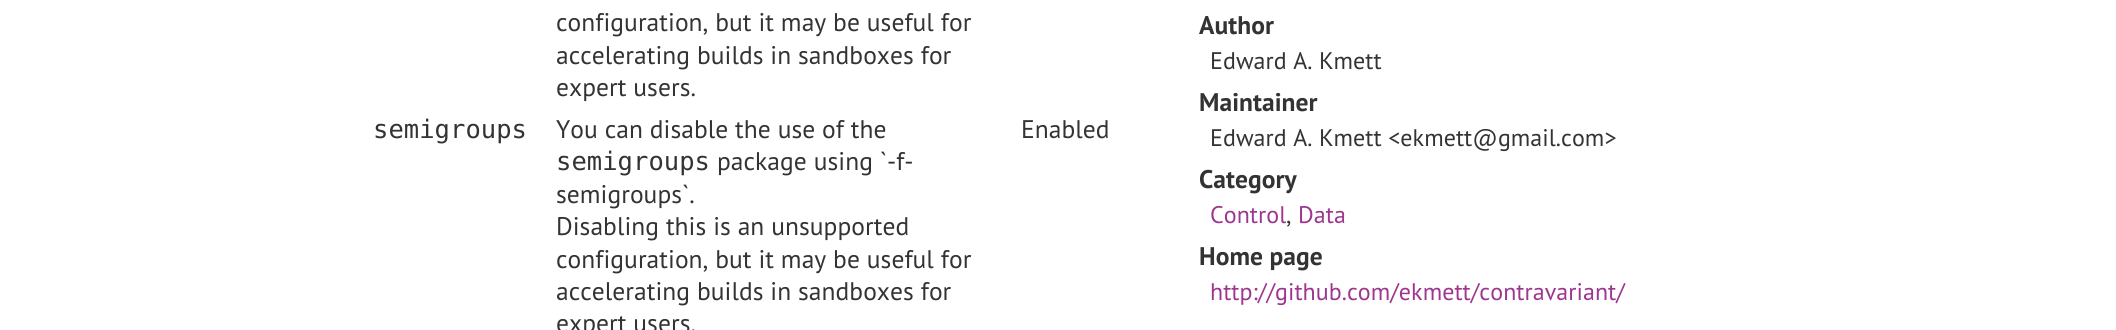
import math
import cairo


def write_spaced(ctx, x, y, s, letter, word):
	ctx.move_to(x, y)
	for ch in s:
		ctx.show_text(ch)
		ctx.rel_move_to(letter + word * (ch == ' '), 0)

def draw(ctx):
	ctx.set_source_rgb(1, 1, 1)
	ctx.paint()
	ctx.select_font_face('PT Sans')
	ctx.set_font_size(25.5)
	ctx.set_source_rgb(0.2, 0.2, 0.2)
	for x, y, s in [
		(556, 31, 'configuration, but it may be useful for'),
		(556, 64, 'accelerating builds in sandboxes for'),
		(556, 96, 'expert users.'),
	]:
		write_spaced(ctx, x, y, s, 0.05, 0)
	ctx.select_font_face('DejaVu Sans Mono')
	write_spaced(ctx, 373, 138, 'semigroups', 0.05, 0)
	ctx.select_font_face('PT Sans')
	write_spaced(ctx, 556, 138, 'You can disable the use of the', 0.05, 0)
	ctx.select_font_face('DejaVu Sans Mono')
	write_spaced(ctx, 556, 170, 'semigroups', 0.05, 0)
	ctx.select_font_face('PT Sans')
	for x, y, s in [
		(717, 170, 'package using `-f-'),
		(556, 203, 'semigroups`.'),
		(556, 235, 'Disabling this is an unsupported'),
		(556, 268, 'configuration, but it may be useful for'),
		(556, 300, 'accelerating builds in sandboxes for'),
		(556, 332, 'expert users.'),
		(1021, 138, 'Enabled'),
	]:
		write_spaced(ctx, x, y, s, 0.05, 0)
	ctx.select_font_face('PT Sans', cairo.FONT_SLANT_NORMAL, cairo.FONT_WEIGHT_BOLD)
	write_spaced(ctx, 1199, 34, 'Author', 0.05, 0)
	ctx.select_font_face('PT Sans')
	ctx.set_font_size(24)
	write_spaced(ctx, 1210, 69, 'Edward A. Kmett', 0.05, 0)
	ctx.select_font_face('PT Sans', cairo.FONT_SLANT_NORMAL, cairo.FONT_WEIGHT_BOLD)
	ctx.set_font_size(25.5)
	write_spaced(ctx, 1199, 111, 'Maintainer', 0.05, 0)
	ctx.select_font_face('PT Sans')
	ctx.set_font_size(24)
	write_spaced(ctx, 1210, 146, 'Edward A. Kmett <ekmett@gmail.com>', 0.05, 0)
	ctx.select_font_face('PT Sans', cairo.FONT_SLANT_NORMAL, cairo.FONT_WEIGHT_BOLD)
	ctx.set_font_size(25.5)
	write_spaced(ctx, 1199, 188, 'Category', 0.05, 0)
	ctx.select_font_face('PT Sans')
	ctx.set_font_size(24)
	ctx.set_source_rgb(0.62, 0.208, 0.561)
	write_spaced(ctx, 1210, 223, 'Control', 0.05, 0)
	ctx.set_source_rgb(0.2, 0.2, 0.2)
	write_spaced(ctx, 1286, 223, ',', 0.05, 0)
	ctx.set_source_rgb(0.62, 0.208, 0.561)
	write_spaced(ctx, 1298, 223, 'Data', 0.05, 0)
	ctx.select_font_face('PT Sans', cairo.FONT_SLANT_NORMAL, cairo.FONT_WEIGHT_BOLD)
	ctx.set_font_size(25.5)
	ctx.set_source_rgb(0.2, 0.2, 0.2)
	write_spaced(ctx, 1199, 265, 'Home page', 0.05, 0)
	ctx.select_font_face('PT Sans')
	ctx.set_font_size(24)
	ctx.set_source_rgb(0.62, 0.208, 0.561)
	write_spaced(ctx, 1210, 300, 'http://github.com/ekmett/contravariant/', 0.05, 0)


surface = cairo.ImageSurface(cairo.FORMAT_RGB24, 2116, 330)
ctx = cairo.Context(surface)
options = cairo.FontOptions()
options.set_hint_metrics(cairo.HINT_METRICS_OFF)
options.set_hint_style(cairo.HINT_STYLE_NONE)
ctx.set_font_options(options)
ctx.set_miter_limit(4)
draw(ctx)
surface.write_to_png('image.png')
